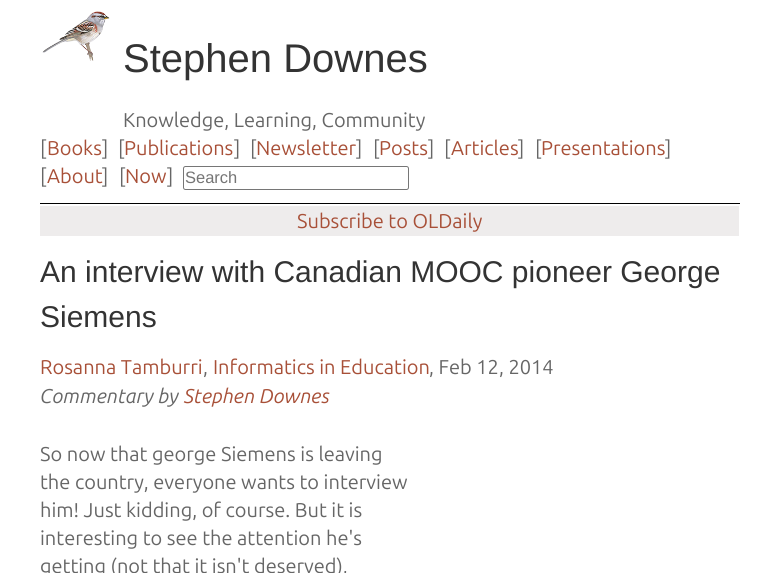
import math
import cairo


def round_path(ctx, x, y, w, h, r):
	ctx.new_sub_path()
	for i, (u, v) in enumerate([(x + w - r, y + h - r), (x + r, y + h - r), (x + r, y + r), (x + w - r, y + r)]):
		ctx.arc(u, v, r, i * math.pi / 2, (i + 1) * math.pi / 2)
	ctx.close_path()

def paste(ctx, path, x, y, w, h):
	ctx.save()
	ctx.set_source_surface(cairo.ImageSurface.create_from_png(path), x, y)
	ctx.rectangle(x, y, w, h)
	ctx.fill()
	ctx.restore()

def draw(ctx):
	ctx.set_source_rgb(1, 1, 1)
	ctx.paint()
	paste(ctx, 'media/1.png', 42, 11, 68, 50)
	ctx.select_font_face('Liberation Sans')
	ctx.set_font_size(40)
	ctx.set_source_rgb(0.2, 0.2, 0.2)
	ctx.move_to(123, 72)
	ctx.show_text('Stephen Downes')
	ctx.select_font_face('Ubuntu')
	ctx.set_font_size(20)
	ctx.set_source_rgb(0.4, 0.4, 0.4)
	ctx.move_to(123, 127)
	ctx.show_text('Knowledge, Learning, Community')
	ctx.set_source_rgb(0, 0, 0)
	ctx.rectangle(40, 203, 700, 1)
	ctx.fill()
	ctx.set_source_rgb(0.4, 0.4, 0.4)
	ctx.move_to(40, 155)
	ctx.show_text('[')
	ctx.set_source_rgb(0.659, 0.314, 0.22)
	ctx.move_to(47, 155)
	ctx.show_text('Books')
	ctx.set_source_rgb(0.4, 0.4, 0.4)
	ctx.move_to(102, 155)
	ctx.show_text(']')
	ctx.move_to(118, 155)
	ctx.show_text('[')
	ctx.set_source_rgb(0.659, 0.314, 0.22)
	ctx.move_to(124, 155)
	ctx.show_text('Publications')
	ctx.set_source_rgb(0.4, 0.4, 0.4)
	ctx.move_to(234, 155)
	ctx.show_text(']')
	ctx.move_to(250, 155)
	ctx.show_text('[')
	ctx.set_source_rgb(0.659, 0.314, 0.22)
	ctx.move_to(256, 155)
	ctx.show_text('Newsletter')
	ctx.set_source_rgb(0.4, 0.4, 0.4)
	ctx.move_to(356, 155)
	ctx.show_text(']')
	ctx.move_to(373, 155)
	ctx.show_text('[')
	ctx.set_source_rgb(0.659, 0.314, 0.22)
	ctx.move_to(379, 155)
	ctx.show_text('Posts')
	ctx.set_source_rgb(0.4, 0.4, 0.4)
	ctx.move_to(428, 155)
	ctx.show_text(']')
	ctx.move_to(444, 155)
	ctx.show_text('[')
	ctx.set_source_rgb(0.659, 0.314, 0.22)
	ctx.move_to(451, 155)
	ctx.show_text('Articles')
	ctx.set_source_rgb(0.4, 0.4, 0.4)
	ctx.move_to(518, 155)
	ctx.show_text(']')
	ctx.move_to(535, 155)
	ctx.show_text('[')
	ctx.set_source_rgb(0.659, 0.314, 0.22)
	ctx.move_to(541, 155)
	ctx.show_text('Presentations')
	ctx.set_source_rgb(0.4, 0.4, 0.4)
	ctx.move_to(665, 155)
	ctx.show_text(']')
	ctx.move_to(40, 183)
	ctx.show_text('[')
	ctx.set_source_rgb(0.659, 0.314, 0.22)
	ctx.move_to(47, 183)
	ctx.show_text('About')
	ctx.set_source_rgb(0.4, 0.4, 0.4)
	ctx.move_to(102, 183)
	ctx.show_text(']')
	ctx.move_to(119, 183)
	ctx.show_text('[')
	ctx.set_source_rgb(0.659, 0.314, 0.22)
	ctx.move_to(125, 183)
	ctx.show_text('Now')
	ctx.set_source_rgb(0.4, 0.4, 0.4)
	ctx.move_to(167, 183)
	ctx.show_text(']')
	round_path(ctx, 183.5, 166.5, 225, 23, 2)
	ctx.set_source_rgb(0.463, 0.463, 0.463)
	ctx.set_line_width(1)
	ctx.stroke()
	ctx.select_font_face('Liberation Sans')
	ctx.set_font_size(16.5)
	ctx.set_source_rgb(0.459, 0.459, 0.459)
	ctx.move_to(185, 183)
	ctx.show_text('Search')
	ctx.set_source_rgb(0.933, 0.925, 0.925)
	ctx.rectangle(40, 206, 699, 30)
	ctx.fill()
	ctx.select_font_face('Ubuntu')
	ctx.set_font_size(20)
	ctx.set_source_rgb(0.659, 0.314, 0.22)
	ctx.move_to(297, 228)
	ctx.show_text('Subscribe to OLDaily')
	ctx.select_font_face('Liberation Sans')
	ctx.set_font_size(30)
	ctx.set_source_rgb(0.2, 0.2, 0.2)
	ctx.move_to(40, 282)
	ctx.show_text('An interview with Canadian MOOC pioneer George')
	ctx.move_to(40, 327)
	ctx.show_text('Siemens')
	ctx.select_font_face('Ubuntu')
	ctx.set_font_size(20)
	ctx.set_source_rgb(0.659, 0.314, 0.22)
	ctx.move_to(40, 374)
	ctx.show_text('Rosanna Tamburri')
	ctx.set_source_rgb(0.4, 0.4, 0.4)
	ctx.move_to(203, 374)
	ctx.show_text(',')
	ctx.set_source_rgb(0.659, 0.314, 0.22)
	ctx.move_to(213, 374)
	ctx.show_text('Informatics in Education')
	ctx.set_source_rgb(0.4, 0.4, 0.4)
	ctx.move_to(429, 374)
	ctx.show_text(', Feb 12, 2014')
	ctx.select_font_face('Ubuntu', cairo.FONT_SLANT_ITALIC)
	ctx.move_to(40, 403)
	ctx.show_text('Commentary by')
	ctx.set_source_rgb(0.659, 0.314, 0.22)
	ctx.move_to(184, 403)
	ctx.show_text('Stephen Downes')
	ctx.select_font_face('Ubuntu')
	ctx.set_source_rgb(0.4, 0.4, 0.4)
	for x, y, s in [
		(40, 461, 'So now that george Siemens is leaving'),
		(40, 489, 'the country, everyone wants to interview'),
		(40, 517, 'him! Just kidding, of course. But it is'),
		(40, 545, 'interesting to see the attention he\'s'),
		(40, 573, 'getting (not that it isn\'t deserved),'),
	]:
		ctx.move_to(x, y)
		ctx.show_text(s)


surface = cairo.ImageSurface(cairo.FORMAT_RGB24, 779, 573)
ctx = cairo.Context(surface)
options = cairo.FontOptions()
options.set_hint_metrics(cairo.HINT_METRICS_OFF)
options.set_hint_style(cairo.HINT_STYLE_NONE)
ctx.set_font_options(options)
ctx.set_miter_limit(4)
draw(ctx)
surface.write_to_png('image.png')
